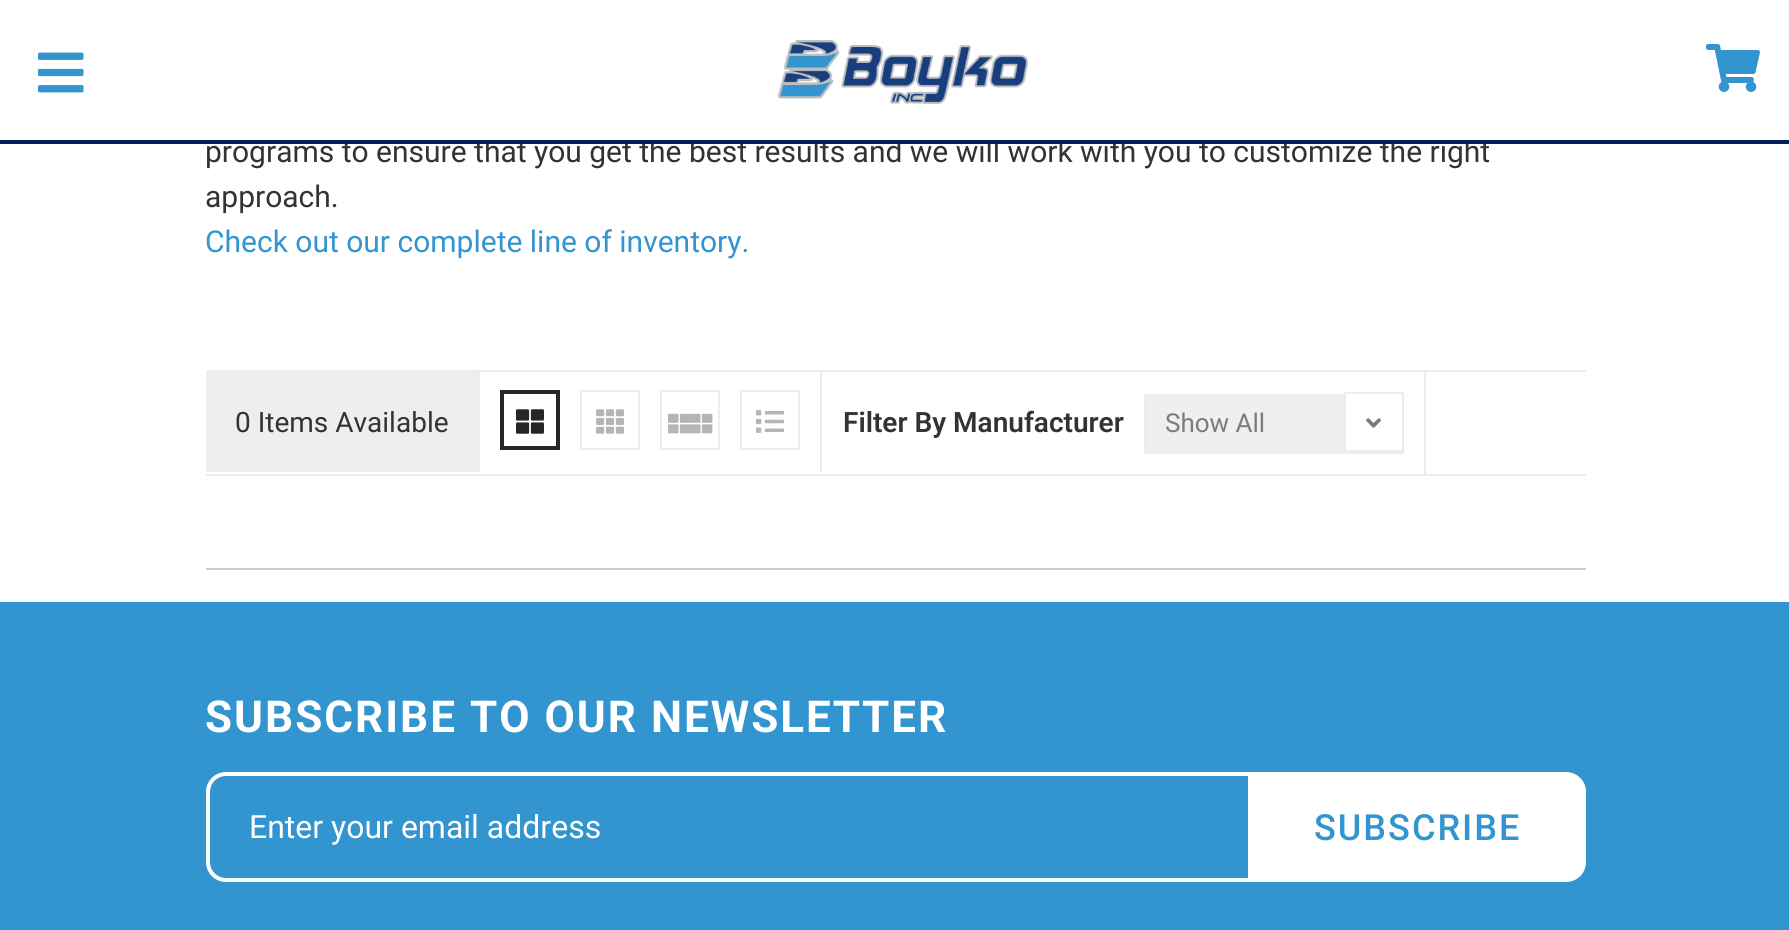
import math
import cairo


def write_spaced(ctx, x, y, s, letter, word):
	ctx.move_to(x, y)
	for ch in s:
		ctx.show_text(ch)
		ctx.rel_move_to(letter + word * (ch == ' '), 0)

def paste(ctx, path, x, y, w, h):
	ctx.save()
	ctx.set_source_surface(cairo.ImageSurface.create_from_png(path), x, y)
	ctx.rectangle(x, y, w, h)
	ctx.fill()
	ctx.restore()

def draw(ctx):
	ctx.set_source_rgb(1, 1, 1)
	ctx.paint()
	ctx.select_font_face('Roboto')
	ctx.set_font_size(30)
	ctx.set_source_rgb(0.2, 0.2, 0.2)
	ctx.move_to(205, 162)
	ctx.show_text('programs to ensure that you get the best results and we will work with you to customize the right')
	ctx.set_source_rgb(1, 1, 1)
	ctx.rectangle(485, 139, 984, 1)
	ctx.fill()
	ctx.set_source_rgb(0, 0.129, 0.341)
	ctx.rectangle(0, 140, 1789, 4)
	ctx.fill()
	paste(ctx, 'media/1.png', 38, 52, 46, 41)
	paste(ctx, 'media/2.png', 778, 40, 250, 64)
	paste(ctx, 'media/3.png', 1706, 44, 54, 48)
	ctx.set_source_rgb(0.2, 0.2, 0.2)
	ctx.move_to(205, 207)
	ctx.show_text('approach.')
	ctx.set_source_rgb(0.2, 0.584, 0.812)
	ctx.move_to(205, 252)
	ctx.show_text('Check out our complete line of inventory.')
	ctx.set_source_rgb(0.922, 0.922, 0.922)
	ctx.rectangle(206, 370, 1380, 2)
	ctx.rectangle(206, 474, 1380, 2)
	ctx.fill()
	ctx.set_source_rgb(0.933, 0.933, 0.933)
	ctx.rectangle(206, 372, 272, 100)
	ctx.fill()
	ctx.set_source_rgb(0.922, 0.922, 0.922)
	ctx.rectangle(478, 372, 2, 100)
	ctx.fill()
	ctx.set_font_size(28)
	ctx.set_source_rgb(0.2, 0.2, 0.2)
	ctx.move_to(235, 432)
	ctx.show_text('0 Items Available')
	ctx.set_source_rgb(0.922, 0.922, 0.922)
	ctx.rectangle(820, 372, 2, 100)
	ctx.fill()
	paste(ctx, 'media/4.png', 516, 409, 28, 25)
	ctx.rectangle(502, 392, 56, 56)
	ctx.set_source_rgb(0.149, 0.149, 0.149)
	ctx.set_line_width(4)
	ctx.stroke()
	paste(ctx, 'media/5.png', 596, 409, 28, 25)
	ctx.rectangle(581, 391, 58, 58)
	ctx.set_source_rgb(0.922, 0.922, 0.922)
	ctx.set_line_width(2)
	ctx.stroke()
	paste(ctx, 'media/6.png', 668, 413, 23, 21)
	paste(ctx, 'media/7.png', 690, 413, 23, 21)
	ctx.rectangle(661, 391, 58, 58)
	ctx.stroke()
	paste(ctx, 'media/8.png', 756, 410, 28, 23)
	ctx.rectangle(741, 391, 58, 58)
	ctx.stroke()
	ctx.rectangle(1424, 372, 2, 102)
	ctx.fill()
	ctx.select_font_face('Roboto SemiBold')
	ctx.set_source_rgb(0.2, 0.2, 0.2)
	ctx.move_to(843, 432)
	ctx.show_text('Filter By Manufacturer')
	ctx.set_source_rgb(0.937, 0.937, 0.937)
	ctx.rectangle(1146, 396, 198, 56)
	ctx.fill()
	ctx.rectangle(1145, 395, 258, 58)
	ctx.set_source_rgb(0.922, 0.922, 0.922)
	ctx.stroke()
	ctx.select_font_face('Roboto')
	ctx.set_font_size(26)
	ctx.set_source_rgb(0.486, 0.486, 0.486)
	ctx.move_to(1165, 432)
	ctx.show_text('Show All')
	ctx.set_source_rgb(1, 1, 1)
	ctx.rectangle(1346, 394, 56, 2)
	ctx.fill()
	ctx.rectangle(1345, 393, 58, 58)
	ctx.set_source_rgb(0.922, 0.922, 0.922)
	ctx.stroke()
	paste(ctx, 'media/9.png', 1366, 418, 15, 10)
	ctx.set_source_rgb(0.8, 0.8, 0.8)
	ctx.rectangle(206, 568, 1380, 2)
	ctx.fill()
	ctx.set_source_rgb(0.2, 0.584, 0.812)
	ctx.rectangle(0, 602, 1789, 328)
	ctx.fill()
	ctx.select_font_face('Roboto', cairo.FONT_SLANT_NORMAL, cairo.FONT_WEIGHT_BOLD)
	ctx.set_font_size(44)
	ctx.set_source_rgb(1, 1, 1)
	write_spaced(ctx, 205, 732, 'SUBSCRIBE TO OUR NEWSLETTER', 2, 0)
	ctx.new_path()
	ctx.move_to(226, 774)
	ctx.line_to(1250, 774)
	ctx.line_to(1250, 880)
	ctx.line_to(226, 880)
	ctx.curve_to(216, 880, 208, 872, 208, 862)
	ctx.line_to(208, 792)
	ctx.curve_to(208, 782, 216, 774, 226, 774)
	ctx.close_path()
	ctx.set_line_width(4)
	ctx.stroke()
	ctx.select_font_face('Roboto')
	ctx.set_font_size(32)
	ctx.move_to(249, 838)
	ctx.show_text('Enter your email address')
	ctx.new_path()
	ctx.move_to(1252, 774)
	ctx.line_to(1566, 774)
	ctx.curve_to(1576, 774, 1584, 782, 1584, 792)
	ctx.line_to(1584, 862)
	ctx.curve_to(1584, 872, 1576, 880, 1566, 880)
	ctx.line_to(1252, 880)
	ctx.close_path()
	ctx.fill_preserve()
	ctx.stroke()
	ctx.select_font_face('Roboto Medium')
	ctx.set_font_size(36)
	ctx.set_source_rgb(0.2, 0.584, 0.812)
	write_spaced(ctx, 1314, 840, 'SUBSCRIBE', 2, 0)


surface = cairo.ImageSurface(cairo.FORMAT_RGB24, 1789, 930)
ctx = cairo.Context(surface)
options = cairo.FontOptions()
options.set_hint_metrics(cairo.HINT_METRICS_OFF)
options.set_hint_style(cairo.HINT_STYLE_NONE)
ctx.set_font_options(options)
ctx.set_miter_limit(4)
draw(ctx)
surface.write_to_png('image.png')
